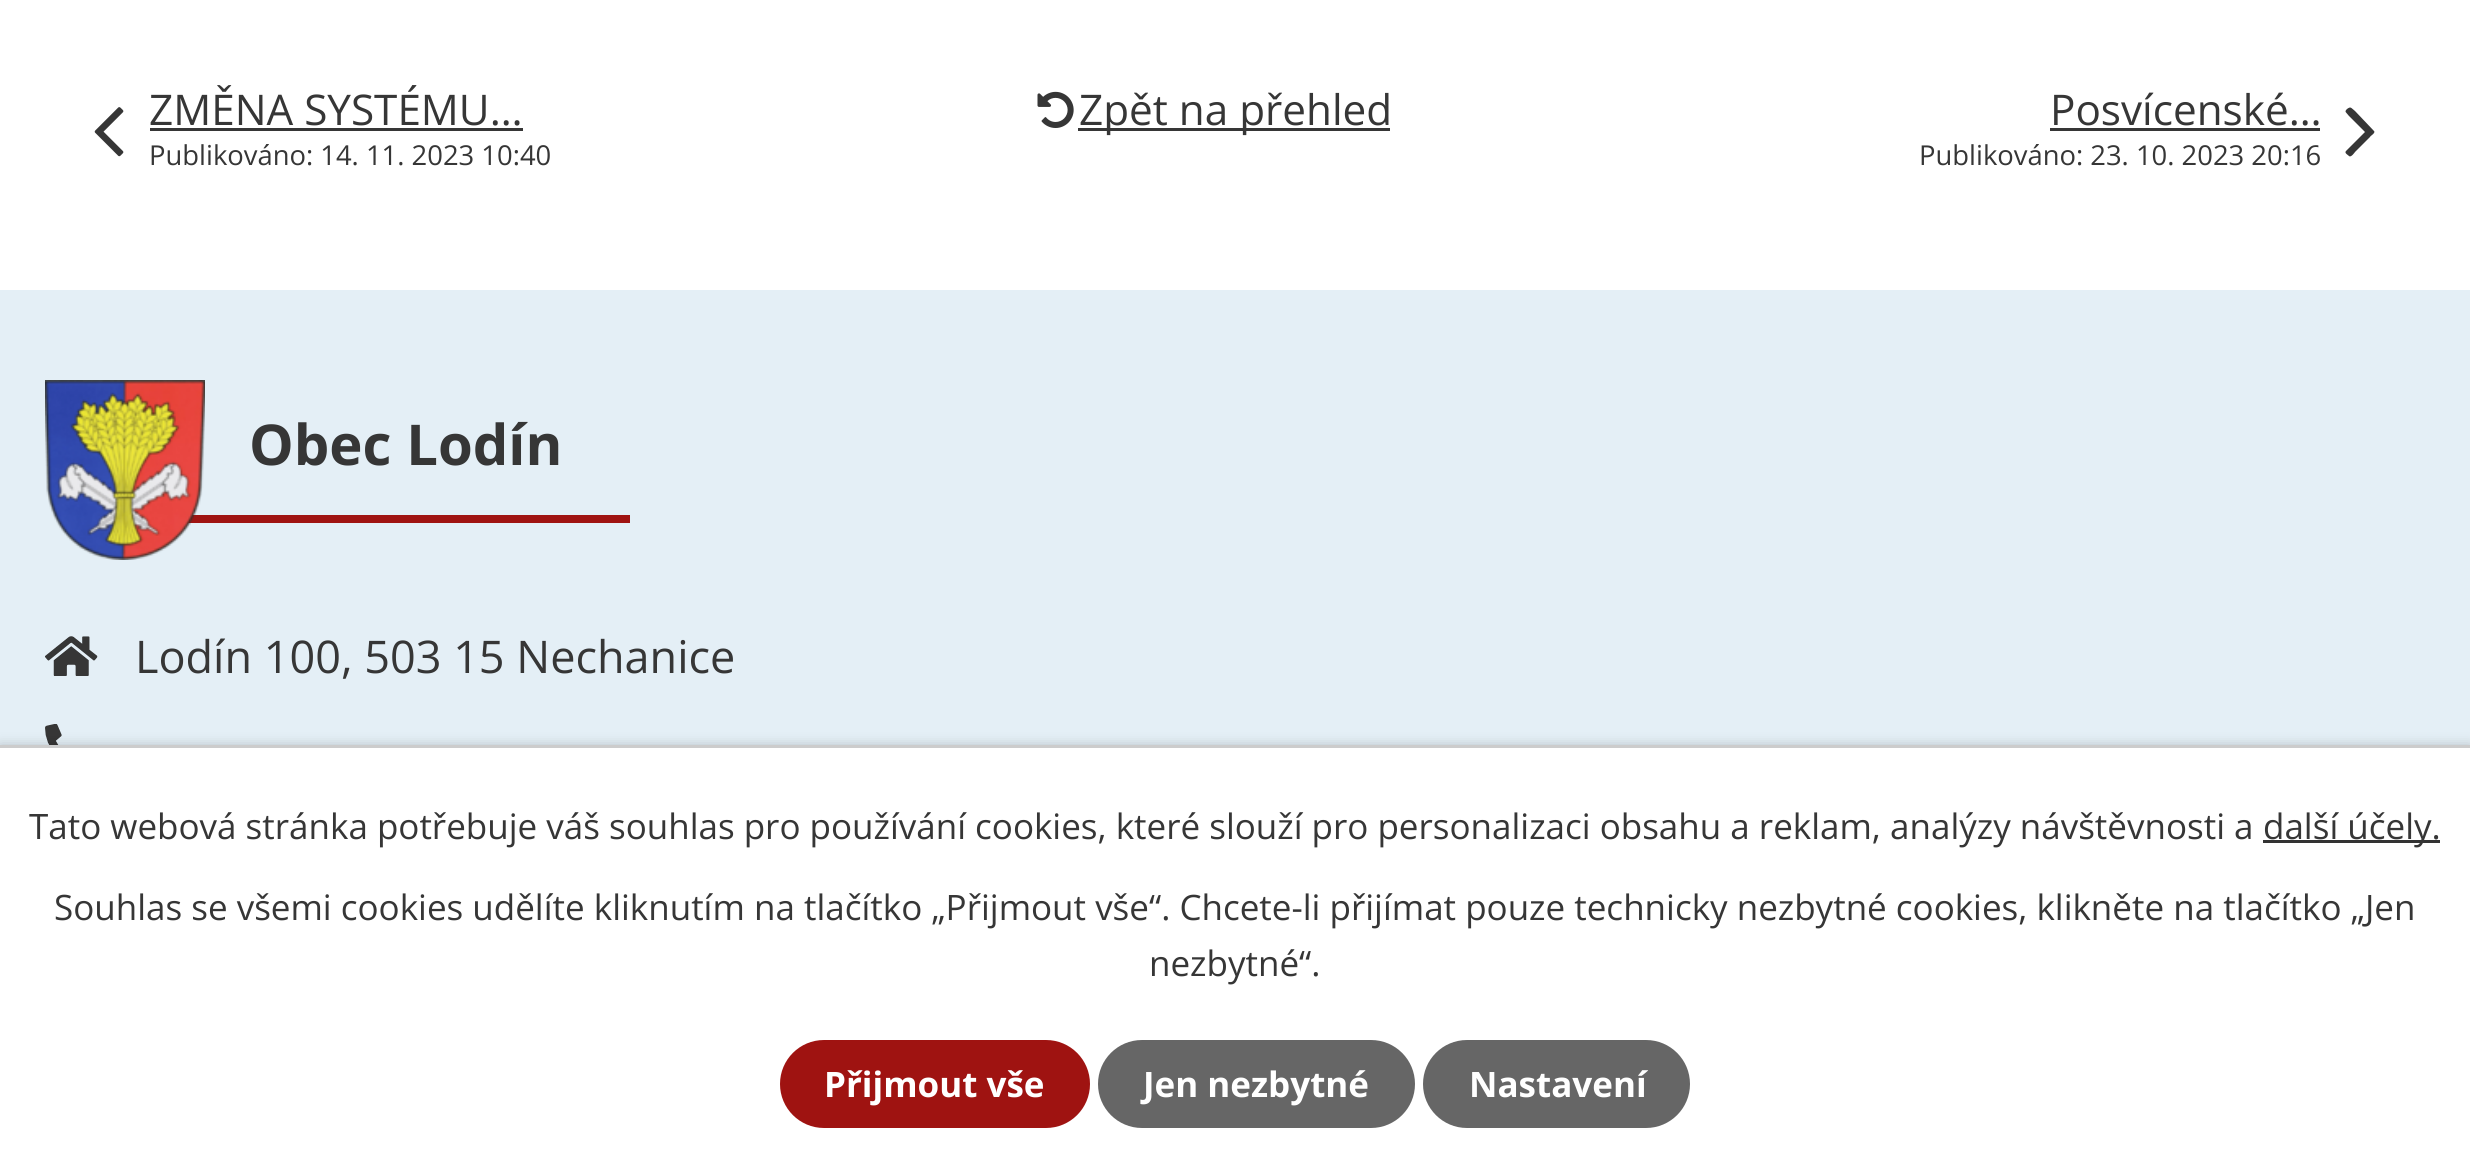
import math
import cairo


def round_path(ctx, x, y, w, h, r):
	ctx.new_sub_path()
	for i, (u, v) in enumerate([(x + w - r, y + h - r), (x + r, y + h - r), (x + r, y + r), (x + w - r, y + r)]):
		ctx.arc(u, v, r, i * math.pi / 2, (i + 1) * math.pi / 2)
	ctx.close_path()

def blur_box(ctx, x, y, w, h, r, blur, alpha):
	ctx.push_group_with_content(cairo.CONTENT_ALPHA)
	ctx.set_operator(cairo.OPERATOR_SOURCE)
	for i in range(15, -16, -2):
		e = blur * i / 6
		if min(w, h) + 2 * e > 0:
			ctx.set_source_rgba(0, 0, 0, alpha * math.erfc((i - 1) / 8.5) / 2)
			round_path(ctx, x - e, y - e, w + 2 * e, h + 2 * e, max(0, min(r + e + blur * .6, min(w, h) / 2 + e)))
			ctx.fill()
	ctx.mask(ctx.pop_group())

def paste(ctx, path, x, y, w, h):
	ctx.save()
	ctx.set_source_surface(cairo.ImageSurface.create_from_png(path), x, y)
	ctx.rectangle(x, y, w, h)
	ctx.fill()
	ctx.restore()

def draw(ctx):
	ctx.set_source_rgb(1, 1, 1)
	ctx.paint()
	paste(ctx, 'media/1.png', 94, 107, 30, 50)
	ctx.select_font_face('Open Sans')
	ctx.set_font_size(42.25)
	ctx.set_source_rgb(0.212, 0.212, 0.212)
	ctx.move_to(149, 125)
	ctx.show_text('ZMĚNA SYSTÉMU…')
	ctx.rectangle(150, 128, 373, 3)
	ctx.fill()
	ctx.set_font_size(27.4)
	ctx.move_to(149, 165)
	ctx.show_text('Publikováno: 14. 11. 2023 10:40')
	paste(ctx, 'media/2.png', 1037, 91, 37, 37)
	ctx.rectangle(1078, 128, 312, 3)
	ctx.fill()
	ctx.set_font_size(42.25)
	ctx.move_to(1079, 125)
	ctx.show_text('Zpět na přehled')
	ctx.move_to(2050, 125)
	ctx.show_text('Posvícenské…')
	ctx.rectangle(2050, 128, 270, 3)
	ctx.fill()
	ctx.set_font_size(27.4)
	ctx.move_to(1919, 165)
	ctx.show_text('Publikováno: 23. 10. 2023 20:16')
	ctx.new_path()
	ctx.move_to(2374, 131)
	ctx.curve_to(2376, 133, 2370, 136, 2370, 137)
	ctx.line_to(2355, 152)
	ctx.curve_to(2355, 152, 2351, 158, 2349, 156)
	ctx.curve_to(2348, 155, 2344, 153, 2346, 151)
	ctx.line_to(2365, 132)
	ctx.line_to(2349, 116)
	ctx.curve_to(2346, 112, 2344, 112, 2347, 109)
	ctx.curve_to(2351, 106, 2351, 108, 2355, 111)
	ctx.close_path()
	ctx.fill()
	ctx.set_source_rgb(0.894, 0.937, 0.961)
	ctx.rectangle(0, 290, 2470, 455)
	ctx.fill()
	ctx.set_source_rgb(0.624, 0.075, 0.067)
	ctx.rectangle(180, 515, 450, 8)
	ctx.fill()
	paste(ctx, 'media/3.png', 45, 380, 160, 180)
	ctx.select_font_face('Open Sans', cairo.FONT_SLANT_NORMAL, cairo.FONT_WEIGHT_BOLD)
	ctx.set_font_size(56.25)
	ctx.set_source_rgb(0.212, 0.212, 0.212)
	ctx.move_to(249, 465)
	ctx.show_text('Obec Lodín')
	paste(ctx, 'media/4.png', 45, 636, 53, 40)
	ctx.select_font_face('Open Sans')
	ctx.set_font_size(45)
	ctx.move_to(135, 673)
	ctx.show_text('Lodín 100, 503 15 Nechanice')
	paste(ctx, 'media/5.png', 45, 724, 17, 21)
	ctx.set_source_rgb(0, 0, 0)
	blur_box(ctx, 0, 745, 2470, 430, 0, 6, 0.2)
	ctx.set_source_rgb(1, 1, 1)
	ctx.rectangle(0, 748, 2470, 425)
	ctx.fill()
	ctx.set_source_rgb(0.8, 0.8, 0.8)
	ctx.rectangle(0, 745, 2470, 3)
	ctx.fill()
	ctx.set_font_size(35)
	ctx.set_source_rgb(0.212, 0.212, 0.212)
	ctx.move_to(29, 839)
	ctx.show_text('Tato webová stránka potřebuje váš souhlas pro používání cookies, které slouží pro personalizaci obsahu a reklam, analýzy návštěvnosti a')
	ctx.set_source_rgb(0.2, 0.2, 0.2)
	ctx.rectangle(2263, 840, 177, 3)
	ctx.fill()
	ctx.set_source_rgb(0.212, 0.212, 0.212)
	for x, y, s in [
		(2263, 839, 'další účely.'),
		(54, 920, 'Souhlas se všemi cookies udělíte kliknutím na tlačítko „Přijmout vše“. Chcete-li přijímat pouze technicky nezbytné cookies, klikněte na tlačítko „Jen'),
		(1149, 976, 'nezbytné“.'),
	]:
		ctx.move_to(x, y)
		ctx.show_text(s)
	ctx.set_source_rgb(0.624, 0.075, 0.067)
	round_path(ctx, 780, 1040, 310, 88, 44)
	ctx.fill()
	ctx.select_font_face('Open Sans', cairo.FONT_SLANT_NORMAL, cairo.FONT_WEIGHT_BOLD)
	ctx.set_source_rgb(1, 1, 1)
	ctx.move_to(824, 1097)
	ctx.show_text('Přijmout vše')
	ctx.set_source_rgb(0.4, 0.4, 0.4)
	round_path(ctx, 1098, 1040, 317, 88, 44)
	ctx.fill()
	ctx.set_source_rgb(1, 1, 1)
	ctx.move_to(1143, 1097)
	ctx.show_text('Jen nezbytné')
	ctx.set_source_rgb(0.4, 0.4, 0.4)
	round_path(ctx, 1423, 1040, 267, 88, 44)
	ctx.fill()
	ctx.set_source_rgb(1, 1, 1)
	ctx.move_to(1469, 1097)
	ctx.show_text('Nastavení')


surface = cairo.ImageSurface(cairo.FORMAT_RGB24, 2470, 1173)
ctx = cairo.Context(surface)
options = cairo.FontOptions()
options.set_hint_metrics(cairo.HINT_METRICS_OFF)
options.set_hint_style(cairo.HINT_STYLE_NONE)
ctx.set_font_options(options)
ctx.set_miter_limit(4)
draw(ctx)
surface.write_to_png('image.png')
